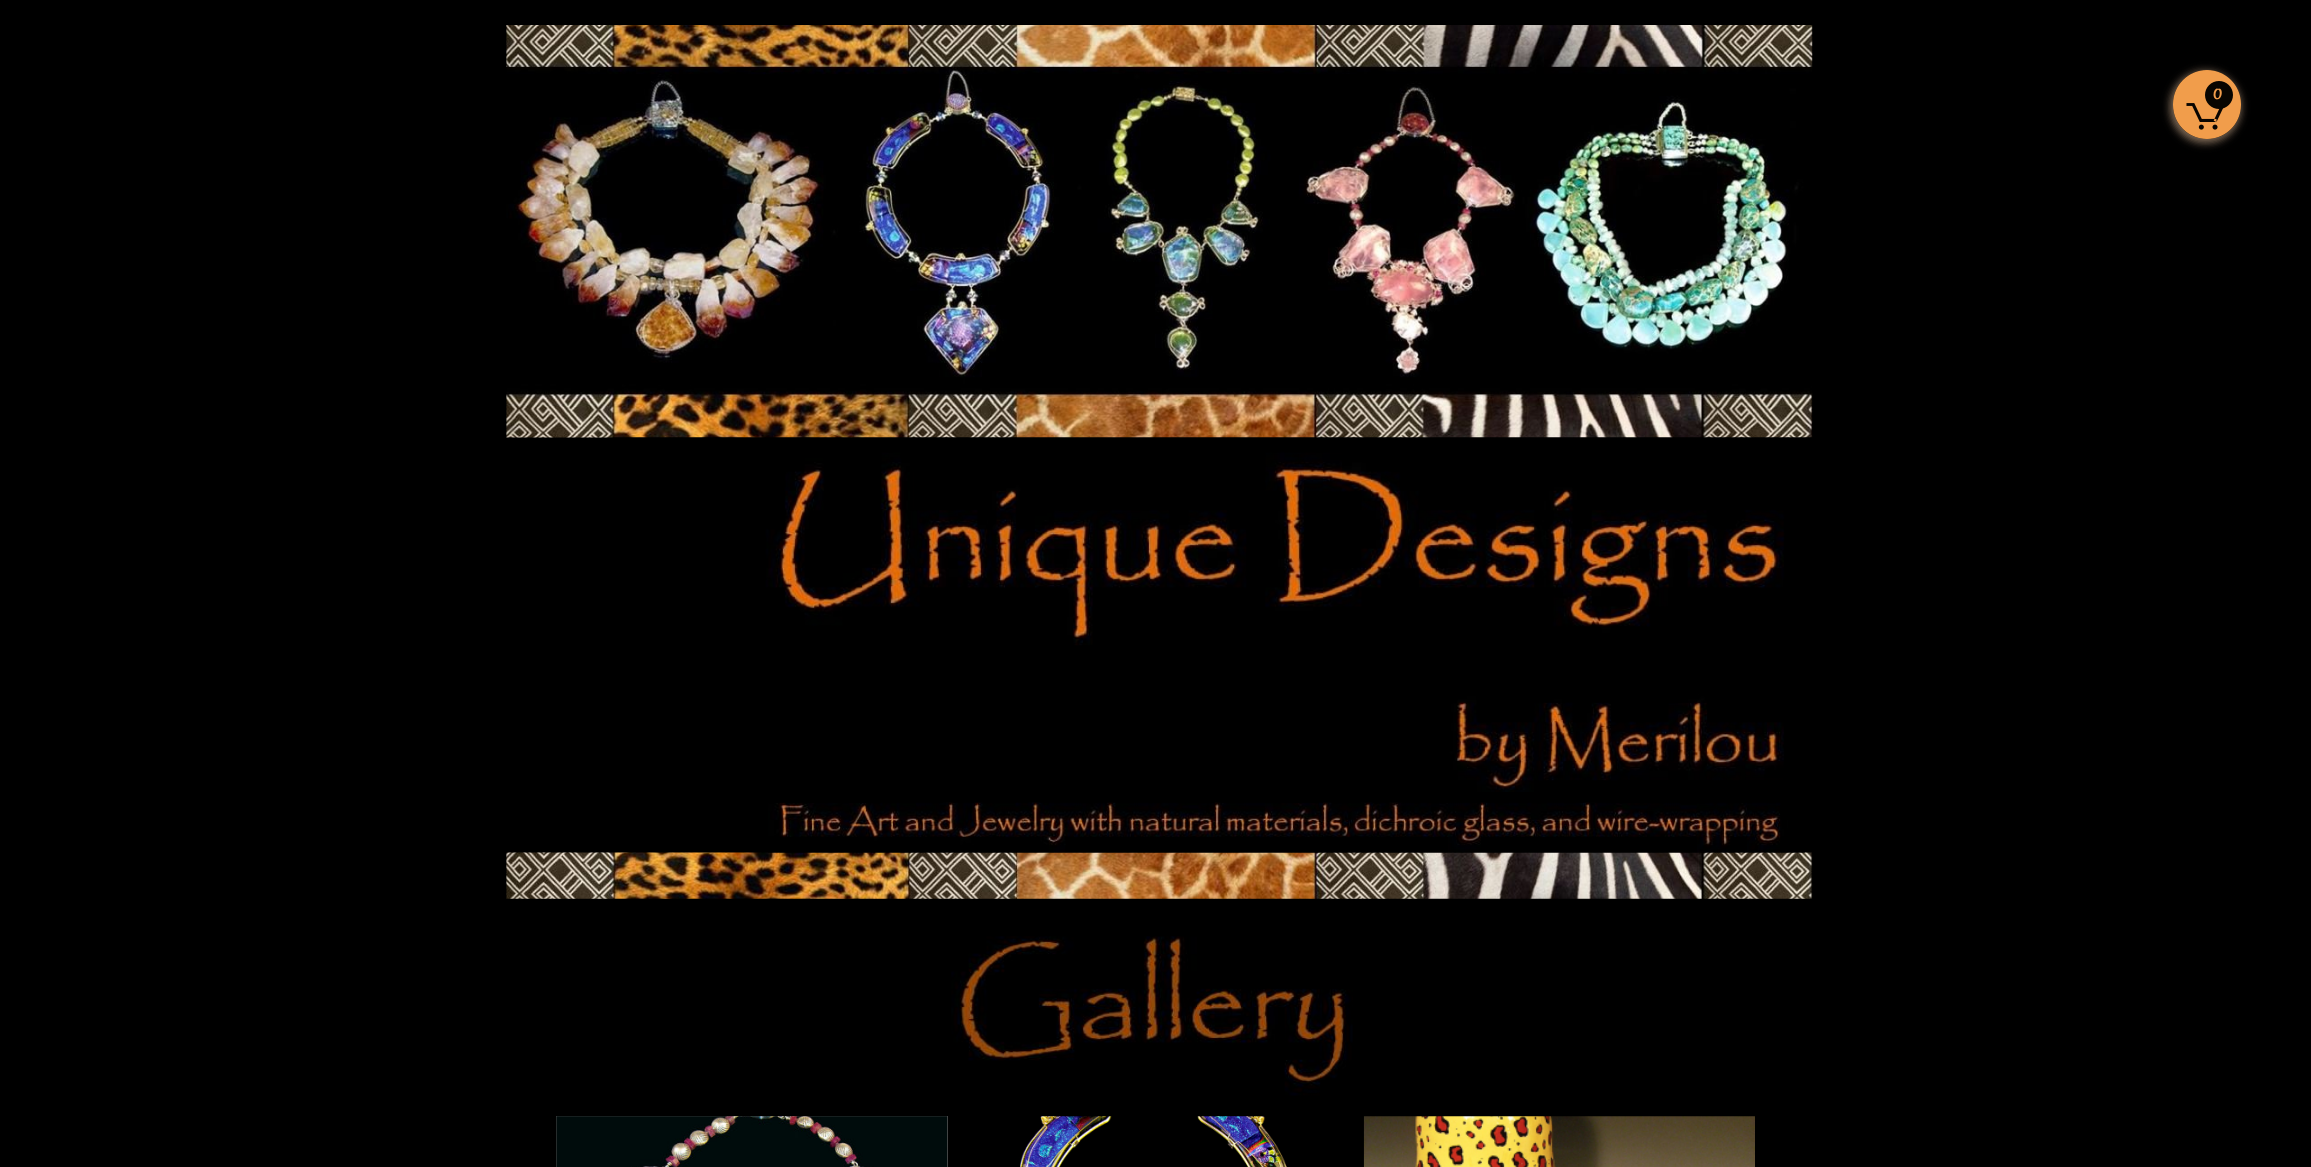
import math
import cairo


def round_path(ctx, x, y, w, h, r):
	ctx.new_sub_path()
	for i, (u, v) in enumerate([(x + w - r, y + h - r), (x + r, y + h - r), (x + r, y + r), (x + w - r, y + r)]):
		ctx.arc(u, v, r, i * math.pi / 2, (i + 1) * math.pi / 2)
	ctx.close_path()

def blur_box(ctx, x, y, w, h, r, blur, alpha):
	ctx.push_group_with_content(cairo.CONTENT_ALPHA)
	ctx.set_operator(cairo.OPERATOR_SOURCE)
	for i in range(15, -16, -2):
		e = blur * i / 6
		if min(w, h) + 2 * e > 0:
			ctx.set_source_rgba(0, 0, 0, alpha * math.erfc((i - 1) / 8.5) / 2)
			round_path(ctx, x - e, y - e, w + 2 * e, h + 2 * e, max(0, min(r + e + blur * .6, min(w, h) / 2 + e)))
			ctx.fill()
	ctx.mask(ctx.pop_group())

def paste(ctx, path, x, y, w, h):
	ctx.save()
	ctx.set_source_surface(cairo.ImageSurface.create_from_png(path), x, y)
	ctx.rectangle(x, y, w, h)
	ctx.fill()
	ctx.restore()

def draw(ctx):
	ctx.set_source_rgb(0, 0, 0)
	ctx.paint()
	paste(ctx, 'media/1.png', 506, 25, 1307, 413)
	ctx.set_source_rgb(0.945, 0.616, 0.294)
	round_path(ctx, 2173, 70, 68, 69, 34)
	ctx.fill()
	ctx.save()
	ctx.set_fill_rule(cairo.FILL_RULE_EVEN_ODD)
	ctx.new_path()
	ctx.move_to(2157, 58)
	ctx.line_to(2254, 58)
	ctx.line_to(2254, 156)
	ctx.line_to(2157, 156)
	ctx.close_path()
	ctx.move_to(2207, 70)
	ctx.curve_to(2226, 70, 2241, 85, 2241, 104)
	ctx.line_to(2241, 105)
	ctx.curve_to(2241, 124, 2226, 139, 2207, 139)
	ctx.curve_to(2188, 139, 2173, 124, 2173, 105)
	ctx.line_to(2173, 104)
	ctx.curve_to(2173, 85, 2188, 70, 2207, 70)
	ctx.close_path()
	ctx.clip()
	ctx.set_source_rgb(0.973, 0.816, 0.667)
	blur_box(ctx, 2170, 71, 71, 72, 35.5, 4, 0.5)
	ctx.restore()
	paste(ctx, 'media/2.png', 2186, 103, 38, 27)
	ctx.set_source_rgb(0.035, 0.02, 0.004)
	ctx.arc(2219, 95, 14, 0, 2 * math.pi)
	ctx.fill()
	ctx.select_font_face('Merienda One')
	ctx.set_font_size(15)
	ctx.set_source_rgb(0.945, 0.616, 0.294)
	ctx.move_to(2213, 99)
	ctx.show_text('0')
	paste(ctx, 'media/3.png', 613, 437, 1199, 355)
	paste(ctx, 'media/5.png', 506, 852, 1307, 47)
	paste(ctx, 'media/4.png', 768, 802, 1037, 51)
	paste(ctx, 'media/6.png', 951, 936, 402, 160)
	ctx.set_source_rgb(0.341, 0.341, 0.341)
	ctx.rectangle(556, 1116, 392, 51)
	ctx.fill()
	paste(ctx, 'media/7.png', 556, 1116, 392, 51)
	paste(ctx, 'media/8.png', 960, 1116, 391, 51)
	paste(ctx, 'media/9.png', 1363, 1116, 392, 51)


surface = cairo.ImageSurface(cairo.FORMAT_RGB24, 2311, 1167)
ctx = cairo.Context(surface)
options = cairo.FontOptions()
options.set_hint_metrics(cairo.HINT_METRICS_OFF)
options.set_hint_style(cairo.HINT_STYLE_NONE)
ctx.set_font_options(options)
ctx.set_miter_limit(4)
draw(ctx)
surface.write_to_png('image.png')
